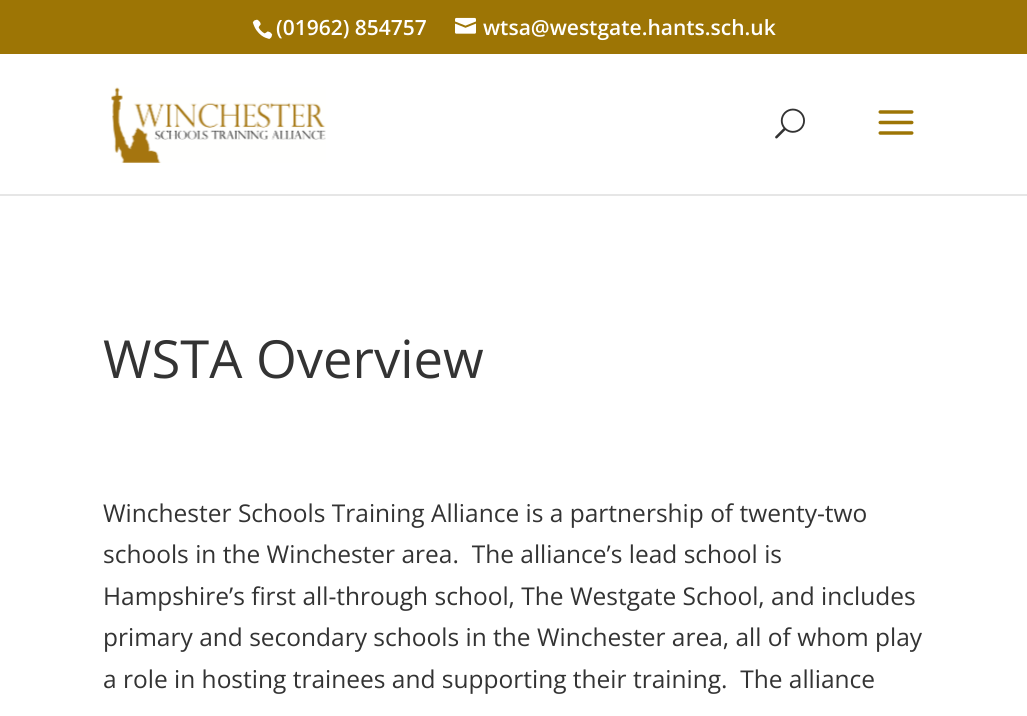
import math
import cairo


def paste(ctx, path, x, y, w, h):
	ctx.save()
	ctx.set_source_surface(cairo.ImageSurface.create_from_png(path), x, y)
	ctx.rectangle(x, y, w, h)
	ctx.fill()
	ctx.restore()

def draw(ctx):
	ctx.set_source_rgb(1, 1, 1)
	ctx.paint()
	ctx.set_source_rgb(0.616, 0.459, 0.02)
	ctx.rectangle(0, 0, 1027, 54)
	ctx.fill()
	paste(ctx, 'media/1.png', 252, 19, 21, 20)
	ctx.select_font_face('Open Sans SemiBold')
	ctx.set_font_size(21)
	ctx.set_source_rgb(1, 1, 1)
	ctx.move_to(276, 35)
	ctx.show_text('(01962) 854757')
	paste(ctx, 'media/2.png', 455, 17, 21, 17)
	ctx.move_to(483, 35)
	ctx.show_text('wtsa@westgate.hants.sch.uk')
	ctx.set_source_rgb(0.902, 0.902, 0.902)
	ctx.rectangle(0, 194, 1027, 2)
	ctx.fill()
	paste(ctx, 'media/3.png', 111, 87, 215, 76)
	paste(ctx, 'media/4.png', 775, 108, 30, 31)
	paste(ctx, 'media/5.png', 878, 110, 36, 25)
	ctx.select_font_face('Open Sans')
	ctx.set_font_size(52.5)
	ctx.set_source_rgb(0.2, 0.2, 0.2)
	ctx.move_to(103, 378)
	ctx.show_text('WSTA Overview')
	ctx.set_font_size(24.5)
	for x, y, s in [
		(103, 522, 'Winchester Schools Training Alliance is a partnership of twenty-two'),
		(103, 563, 'schools in the Winchester area.  The alliance’s lead school is'),
		(103, 605, 'Hampshire’s first all-through school, The Westgate School, and includes'),
		(103, 646, 'primary and secondary schools in the Winchester area, all of whom play'),
		(103, 688, 'a role in hosting trainees and supporting their training.  The alliance'),
	]:
		ctx.move_to(x, y)
		ctx.show_text(s)


surface = cairo.ImageSurface(cairo.FORMAT_RGB24, 1027, 716)
ctx = cairo.Context(surface)
options = cairo.FontOptions()
options.set_hint_metrics(cairo.HINT_METRICS_OFF)
options.set_hint_style(cairo.HINT_STYLE_NONE)
ctx.set_font_options(options)
ctx.set_miter_limit(4)
draw(ctx)
surface.write_to_png('image.png')
